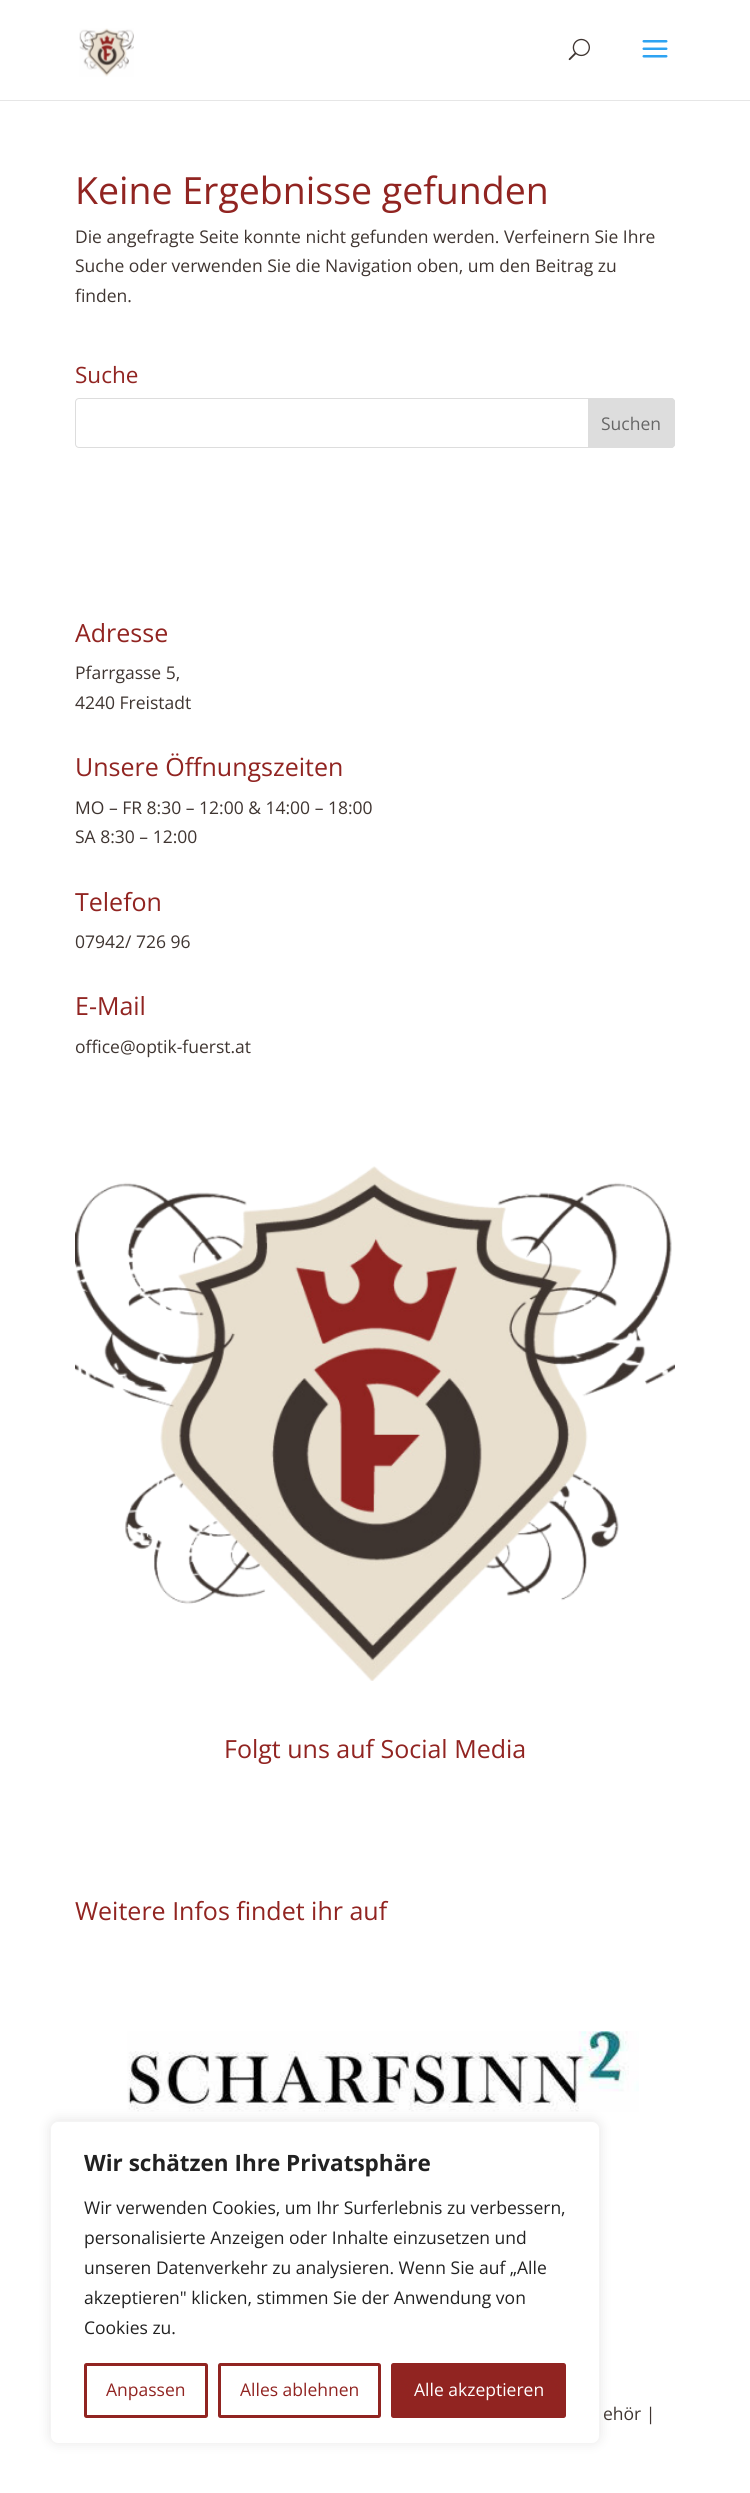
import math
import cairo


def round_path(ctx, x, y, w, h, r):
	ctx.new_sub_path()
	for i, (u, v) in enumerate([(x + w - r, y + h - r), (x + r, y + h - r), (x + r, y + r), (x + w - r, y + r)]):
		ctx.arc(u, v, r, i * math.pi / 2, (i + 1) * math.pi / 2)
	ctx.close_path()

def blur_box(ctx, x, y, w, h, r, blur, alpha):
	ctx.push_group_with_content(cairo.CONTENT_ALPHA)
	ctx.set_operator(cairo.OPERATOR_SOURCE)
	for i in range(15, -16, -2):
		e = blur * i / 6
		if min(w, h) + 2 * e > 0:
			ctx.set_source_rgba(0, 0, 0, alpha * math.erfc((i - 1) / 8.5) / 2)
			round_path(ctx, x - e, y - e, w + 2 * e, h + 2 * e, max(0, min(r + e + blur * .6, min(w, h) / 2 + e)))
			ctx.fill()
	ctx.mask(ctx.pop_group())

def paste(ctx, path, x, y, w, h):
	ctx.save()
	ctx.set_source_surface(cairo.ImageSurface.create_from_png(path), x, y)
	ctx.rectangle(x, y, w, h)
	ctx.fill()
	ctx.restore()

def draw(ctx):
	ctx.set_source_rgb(1, 1, 1)
	ctx.paint()
	ctx.set_source_rgb(0.902, 0.902, 0.902)
	ctx.rectangle(0, 100, 750, 1)
	ctx.fill()
	paste(ctx, 'media/1.png', 79, 28, 55, 49)
	paste(ctx, 'media/2.png', 568, 38, 22, 23)
	paste(ctx, 'media/3.png', 642, 40, 26, 18)
	ctx.select_font_face('Open Sans')
	ctx.set_font_size(37.5)
	ctx.set_source_rgb(0.569, 0.141, 0.129)
	ctx.move_to(75, 204)
	ctx.show_text('Keine Ergebnisse gefunden')
	ctx.set_font_size(17.5)
	ctx.set_source_rgb(0.247, 0.208, 0.192)
	for x, y, s in [
		(75, 243, 'Die angefragte Seite konnte nicht gefunden werden. Verfeinern Sie Ihre'),
		(75, 272, 'Suche oder verwenden Sie die Navigation oben, um den Beitrag zu'),
		(75, 302, 'finden.'),
	]:
		ctx.move_to(x, y)
		ctx.show_text(s)
	ctx.set_font_size(22.5)
	ctx.set_source_rgb(0.569, 0.141, 0.129)
	ctx.move_to(75, 383)
	ctx.show_text('Suche')
	round_path(ctx, 75.5, 398.5, 599, 49, 3.5)
	ctx.set_source_rgb(0.867, 0.867, 0.867)
	ctx.set_line_width(1)
	ctx.stroke()
	ctx.new_path()
	ctx.move_to(588.5, 398.5)
	ctx.line_to(671, 398.5)
	ctx.curve_to(673, 398.5, 674.5, 400, 674.5, 402)
	ctx.line_to(674.5, 444)
	ctx.curve_to(674.5, 446, 673, 447.5, 671, 447.5)
	ctx.line_to(588.5, 447.5)
	ctx.close_path()
	ctx.fill_preserve()
	ctx.stroke()
	ctx.set_font_size(17.5)
	ctx.set_source_rgb(0.4, 0.4, 0.4)
	ctx.move_to(601, 430)
	ctx.show_text('Suchen')
	ctx.set_font_size(25)
	ctx.set_source_rgb(0.569, 0.141, 0.129)
	ctx.move_to(75, 642)
	ctx.show_text('Adresse')
	ctx.set_font_size(17.5)
	ctx.set_source_rgb(0.247, 0.208, 0.192)
	ctx.move_to(75, 679)
	ctx.show_text('Pfarrgasse 5,')
	ctx.move_to(75, 709)
	ctx.show_text('4240 Freistadt')
	ctx.set_font_size(25)
	ctx.set_source_rgb(0.569, 0.141, 0.129)
	ctx.move_to(75, 776)
	ctx.show_text('Unsere Öffnungszeiten')
	ctx.set_font_size(17.5)
	ctx.set_source_rgb(0.247, 0.208, 0.192)
	ctx.move_to(75, 814)
	ctx.show_text('MO – FR 8:30 – 12:00 & 14:00 – 18:00')
	ctx.move_to(75, 843)
	ctx.show_text('SA 8:30 – 12:00')
	ctx.set_font_size(25)
	ctx.set_source_rgb(0.569, 0.141, 0.129)
	ctx.move_to(75, 911)
	ctx.show_text('Telefon')
	ctx.set_font_size(17.5)
	ctx.set_source_rgb(0.247, 0.208, 0.192)
	ctx.move_to(75, 948)
	ctx.show_text('07942/ 726 96')
	ctx.set_font_size(25)
	ctx.set_source_rgb(0.569, 0.141, 0.129)
	ctx.move_to(75, 1015)
	ctx.show_text('E-Mail')
	ctx.set_font_size(17.5)
	ctx.set_source_rgb(0.247, 0.208, 0.192)
	ctx.move_to(75, 1053)
	ctx.show_text('office@optik-fuerst.at')
	paste(ctx, 'media/4.png', 75, 1166, 600, 515)
	ctx.set_font_size(25)
	ctx.set_source_rgb(0.569, 0.141, 0.129)
	ctx.move_to(224, 1758)
	ctx.show_text('Folgt uns auf Social Media')
	ctx.move_to(75, 1920)
	ctx.show_text('Weitere Infos findet ihr auf')
	paste(ctx, 'media/5.png', 127, 2031, 512, 81)
	ctx.set_font_size(17.5)
	ctx.set_source_rgb(0.247, 0.208, 0.192)
	ctx.move_to(603, 2420)
	ctx.show_text('ehör |')
	ctx.set_source_rgb(0.675, 0.671, 0.671)
	blur_box(ctx, 50, 2120, 550, 323, 8, 6, 0.3)
	ctx.set_source_rgb(1, 1, 1)
	round_path(ctx, 50.5, 2121.5, 549, 322, 7.5)
	ctx.fill_preserve()
	ctx.set_source_rgb(0.957, 0.957, 0.957)
	ctx.stroke()
	ctx.select_font_face('Open Sans', cairo.FONT_SLANT_NORMAL, cairo.FONT_WEIGHT_BOLD)
	ctx.set_font_size(22.5)
	ctx.set_source_rgb(0.129, 0.129, 0.129)
	ctx.move_to(84, 2171)
	ctx.show_text('Wir schätzen Ihre Privatsphäre')
	ctx.select_font_face('Open Sans')
	ctx.set_font_size(17.5)
	for x, y, s in [
		(84, 2214, 'Wir verwenden Cookies, um Ihr Surferlebnis zu verbessern,'),
		(84, 2244, 'personalisierte Anzeigen oder Inhalte einzusetzen und'),
		(84, 2274, 'unseren Datenverkehr zu analysieren. Wenn Sie auf „Alle'),
		(84, 2304, 'akzeptieren" klicken, stimmen Sie der Anwendung von'),
		(84, 2334, 'Cookies zu.'),
	]:
		ctx.move_to(x, y)
		ctx.show_text(s)
	round_path(ctx, 85.5, 2364.5, 121, 52, 1)
	ctx.set_source_rgb(0.569, 0.141, 0.129)
	ctx.set_line_width(3)
	ctx.stroke()
	ctx.move_to(106, 2396)
	ctx.show_text('Anpassen')
	round_path(ctx, 219.5, 2364.5, 160, 52, 1)
	ctx.stroke()
	ctx.move_to(240, 2396)
	ctx.show_text('Alles ablehnen')
	round_path(ctx, 392.5, 2364.5, 172, 52, 1)
	ctx.fill_preserve()
	ctx.stroke()
	ctx.set_source_rgb(1, 1, 1)
	ctx.move_to(414, 2396)
	ctx.show_text('Alle akzeptieren')


surface = cairo.ImageSurface(cairo.FORMAT_RGB24, 750, 2493)
ctx = cairo.Context(surface)
options = cairo.FontOptions()
options.set_hint_metrics(cairo.HINT_METRICS_OFF)
options.set_hint_style(cairo.HINT_STYLE_NONE)
ctx.set_font_options(options)
ctx.set_miter_limit(4)
draw(ctx)
surface.write_to_png('image.png')
